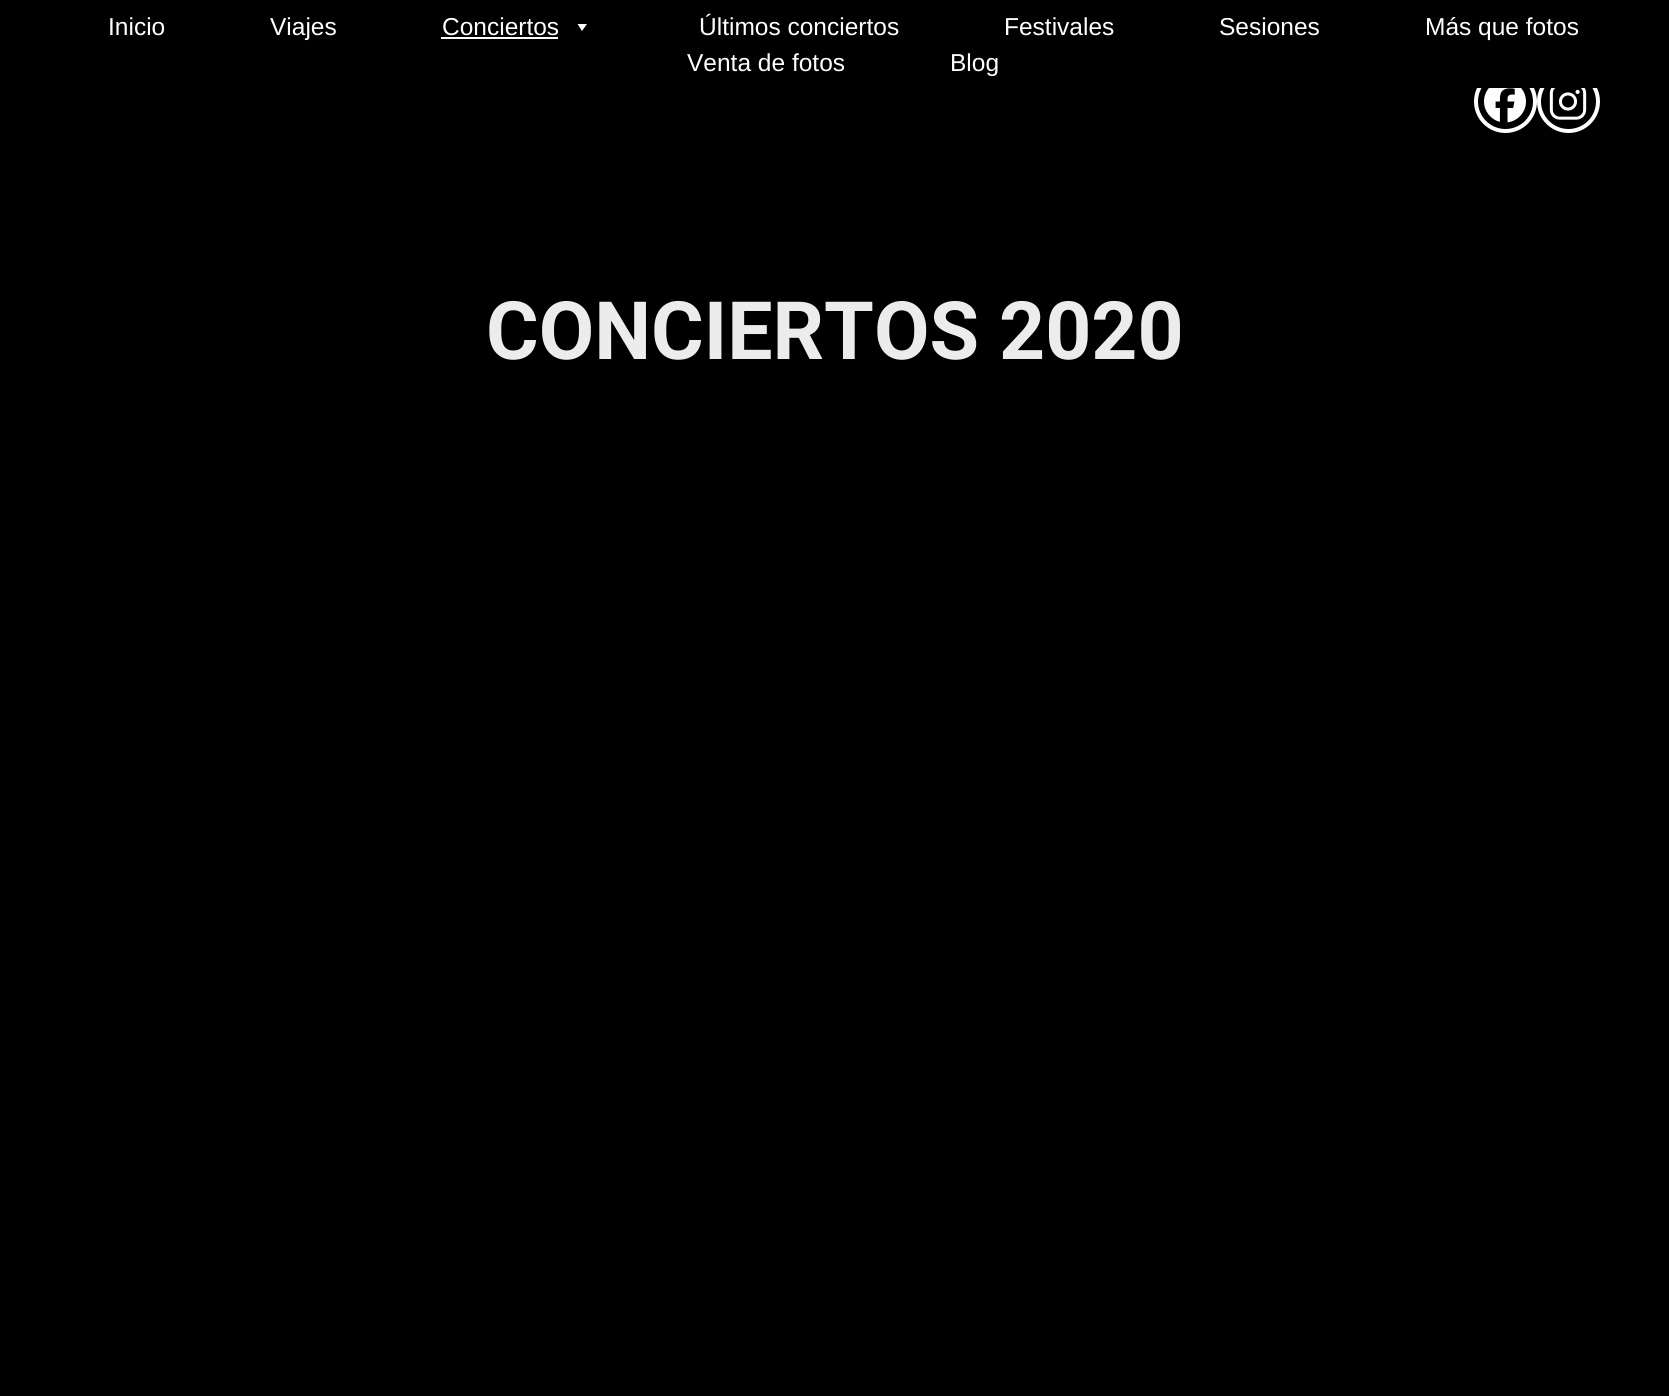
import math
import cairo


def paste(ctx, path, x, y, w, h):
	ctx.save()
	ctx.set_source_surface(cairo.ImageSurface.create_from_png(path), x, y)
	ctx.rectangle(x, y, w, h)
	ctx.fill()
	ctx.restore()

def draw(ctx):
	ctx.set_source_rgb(0, 0, 0)
	ctx.paint()
	ctx.arc(1505.5, 101.5, 29.5, 0, 2 * math.pi)
	ctx.set_source_rgb(1, 1, 1)
	ctx.set_line_width(4)
	ctx.stroke()
	ctx.arc(1568.5, 101.5, 29.5, 0, 2 * math.pi)
	ctx.stroke()
	ctx.set_source_rgb(0, 0, 0)
	ctx.rectangle(1477, 70, 120, 18)
	ctx.fill()
	ctx.select_font_face('Liberation Sans')
	ctx.set_font_size(24.5)
	ctx.set_source_rgb(1, 1, 1)
	for x, y, s in [
		(108, 35, 'Inicio'),
		(270, 35, 'Viajes'),
		(442, 35, 'Conciertos'),
	]:
		ctx.move_to(x, y)
		ctx.show_text(s)
	ctx.rectangle(441, 37, 117, 2)
	ctx.fill()
	ctx.new_path()
	ctx.move_to(587, 24)
	ctx.line_to(582, 31)
	ctx.line_to(577.5, 24)
	ctx.close_path()
	ctx.fill()
	for x, y, s in [
		(699, 35, 'Últimos conciertos'),
		(1004, 35, 'Festivales'),
		(1219, 35, 'Sesiones'),
		(1425, 35, 'Más que fotos'),
		(687, 71, 'Venta de fotos'),
		(950, 71, 'Blog'),
	]:
		ctx.move_to(x, y)
		ctx.show_text(s)
	paste(ctx, 'media/1.png', 1484, 88, 42, 35)
	paste(ctx, 'media/2.png', 1549, 88, 38, 32)
	ctx.select_font_face('Roboto', cairo.FONT_SLANT_NORMAL, cairo.FONT_WEIGHT_BOLD)
	ctx.set_font_size(80.5)
	ctx.set_source_rgb(0.922, 0.922, 0.922)
	ctx.move_to(486, 359)
	ctx.show_text('CONCIERTOS 2020')


surface = cairo.ImageSurface(cairo.FORMAT_RGB24, 1669, 1396)
ctx = cairo.Context(surface)
options = cairo.FontOptions()
options.set_hint_metrics(cairo.HINT_METRICS_OFF)
options.set_hint_style(cairo.HINT_STYLE_NONE)
ctx.set_font_options(options)
ctx.set_miter_limit(4)
draw(ctx)
surface.write_to_png('image.png')
